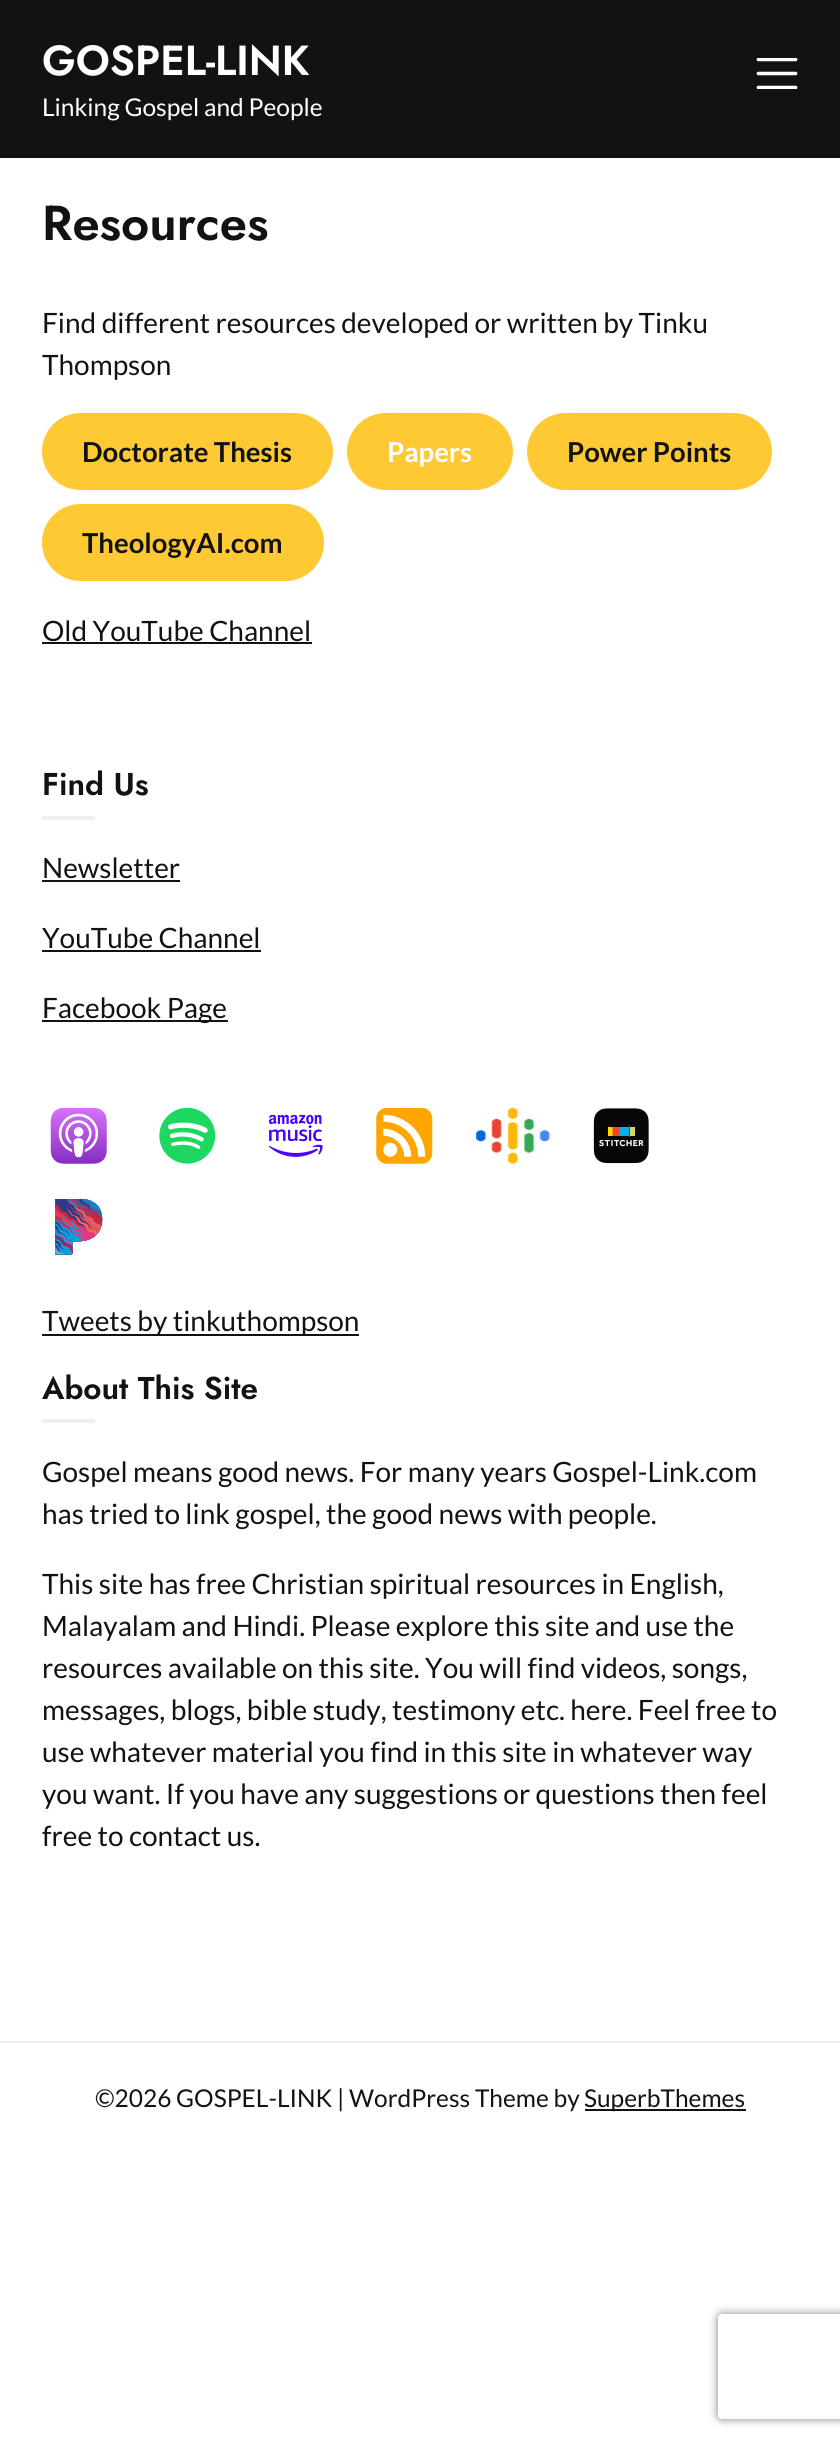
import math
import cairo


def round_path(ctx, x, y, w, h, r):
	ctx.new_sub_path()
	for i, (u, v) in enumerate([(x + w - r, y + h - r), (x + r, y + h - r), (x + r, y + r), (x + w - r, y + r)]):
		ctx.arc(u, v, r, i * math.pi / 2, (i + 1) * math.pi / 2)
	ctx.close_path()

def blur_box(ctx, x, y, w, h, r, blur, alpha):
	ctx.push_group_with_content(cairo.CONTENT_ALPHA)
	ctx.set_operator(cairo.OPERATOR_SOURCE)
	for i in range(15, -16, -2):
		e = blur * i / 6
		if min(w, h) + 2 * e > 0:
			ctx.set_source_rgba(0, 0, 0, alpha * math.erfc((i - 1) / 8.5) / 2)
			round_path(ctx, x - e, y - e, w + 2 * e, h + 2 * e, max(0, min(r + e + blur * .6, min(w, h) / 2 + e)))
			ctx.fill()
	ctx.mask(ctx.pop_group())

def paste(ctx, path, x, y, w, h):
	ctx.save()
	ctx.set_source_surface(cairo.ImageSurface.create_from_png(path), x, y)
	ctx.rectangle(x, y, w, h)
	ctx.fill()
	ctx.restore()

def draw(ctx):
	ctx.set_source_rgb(1, 1, 1)
	ctx.paint()
	ctx.set_source_rgb(0.067, 0.075, 0.078)
	ctx.rectangle(0, 0, 840, 158)
	ctx.fill()
	ctx.select_font_face('Jost SemiBold')
	ctx.set_font_size(42)
	ctx.set_source_rgb(1, 1, 1)
	ctx.move_to(42, 75)
	ctx.show_text('GOSPEL-LINK')
	ctx.select_font_face('Lato')
	ctx.set_font_size(24.5)
	ctx.move_to(42, 116)
	ctx.show_text('Linking Gospel and People')
	paste(ctx, 'media/1.png', 756, 58, 42, 31)
	ctx.select_font_face('Jost SemiBold')
	ctx.set_font_size(49)
	ctx.set_source_rgb(0.067, 0.075, 0.078)
	ctx.move_to(42, 240)
	ctx.show_text('Resources')
	ctx.select_font_face('Lato')
	ctx.set_font_size(28)
	ctx.move_to(42, 333)
	ctx.show_text('Find different resources developed or written by Tinku')
	ctx.move_to(42, 375)
	ctx.show_text('Thompson')
	ctx.set_source_rgb(1, 0.788, 0.204)
	round_path(ctx, 42, 413, 291, 77, 38.5)
	ctx.fill()
	ctx.select_font_face('Lato', cairo.FONT_SLANT_NORMAL, cairo.FONT_WEIGHT_BOLD)
	ctx.set_font_size(27.5)
	ctx.set_source_rgb(0.067, 0.075, 0.078)
	ctx.move_to(82, 462)
	ctx.show_text('Doctorate Thesis')
	ctx.set_source_rgb(1, 0.788, 0.204)
	round_path(ctx, 347, 413, 166, 77, 38.5)
	ctx.fill()
	ctx.set_source_rgb(1, 1, 1)
	ctx.move_to(387, 462)
	ctx.show_text('Papers')
	ctx.set_source_rgb(1, 0.788, 0.204)
	round_path(ctx, 527, 413, 245, 77, 38.5)
	ctx.fill()
	ctx.set_source_rgb(0.067, 0.075, 0.078)
	ctx.move_to(567, 462)
	ctx.show_text('Power Points')
	ctx.set_source_rgb(1, 0.788, 0.204)
	round_path(ctx, 42, 504, 282, 77, 38.5)
	ctx.fill()
	ctx.set_source_rgb(0.067, 0.075, 0.078)
	ctx.move_to(82, 553)
	ctx.show_text('TheologyAI.com')
	ctx.select_font_face('Lato')
	ctx.set_font_size(28)
	ctx.move_to(42, 641)
	ctx.show_text('Old YouTube Channel')
	ctx.rectangle(42, 642, 270, 2)
	ctx.fill()
	ctx.select_font_face('Jost SemiBold')
	ctx.set_font_size(31.5)
	ctx.move_to(42, 795)
	ctx.show_text('Find Us')
	ctx.set_source_rgb(0.937, 0.937, 0.937)
	ctx.rectangle(42, 816, 53, 4)
	ctx.fill()
	ctx.select_font_face('Lato')
	ctx.set_font_size(28)
	ctx.set_source_rgb(0.067, 0.075, 0.078)
	ctx.move_to(42, 878)
	ctx.show_text('Newsletter')
	ctx.rectangle(42, 880, 138, 2)
	ctx.fill()
	ctx.move_to(42, 948)
	ctx.show_text('YouTube Channel')
	ctx.rectangle(42, 950, 219, 2)
	ctx.fill()
	ctx.rectangle(42, 1020, 186, 2)
	ctx.fill()
	ctx.move_to(42, 1018)
	ctx.show_text('Facebook Page')
	paste(ctx, 'media/2.png', 50, 1108, 57, 56)
	paste(ctx, 'media/3.png', 159, 1108, 57, 56)
	paste(ctx, 'media/4.png', 268, 1114, 55, 43)
	paste(ctx, 'media/5.png', 376, 1108, 57, 56)
	paste(ctx, 'media/6.png', 476, 1107, 74, 57)
	paste(ctx, 'media/7.png', 593, 1108, 56, 56)
	paste(ctx, 'media/8.png', 55, 1199, 48, 56)
	ctx.rectangle(42, 1334, 317, 2)
	ctx.fill()
	ctx.move_to(42, 1331)
	ctx.show_text('Tweets by tinkuthompson')
	ctx.select_font_face('Jost SemiBold')
	ctx.set_font_size(31.5)
	ctx.move_to(42, 1399)
	ctx.show_text('About This Site')
	ctx.set_source_rgb(0.937, 0.937, 0.937)
	ctx.rectangle(42, 1419, 53, 4)
	ctx.fill()
	ctx.select_font_face('Lato')
	ctx.set_font_size(28)
	ctx.set_source_rgb(0.067, 0.075, 0.078)
	for x, y, s in [
		(42, 1482, 'Gospel means good news. For many years Gospel-Link.com'),
		(42, 1524, 'has tried to link gospel, the good news with people.'),
		(42, 1594, 'This site has free Christian spiritual resources in English,'),
		(42, 1636, 'Malayalam and Hindi. Please explore this site and use the'),
		(42, 1678, 'resources available on this site. You will find videos, songs,'),
		(42, 1720, 'messages, blogs, bible study, testimony etc. here. Feel free to'),
		(42, 1762, 'use whatever material you find in this site in whatever way'),
		(42, 1804, 'you want. If you have any suggestions or questions then feel'),
		(42, 1846, 'free to contact us.'),
	]:
		ctx.move_to(x, y)
		ctx.show_text(s)
	ctx.set_source_rgb(0.937, 0.937, 0.937)
	ctx.rectangle(0, 2041, 840, 2)
	ctx.fill()
	ctx.set_font_size(24.5)
	ctx.set_source_rgb(0.067, 0.075, 0.078)
	ctx.move_to(95, 2107)
	ctx.show_text('©2026 GOSPEL-LINK | WordPress Theme by')
	ctx.rectangle(585, 2109, 161, 2)
	ctx.fill()
	ctx.move_to(584, 2107)
	ctx.show_text('SuperbThemes')
	ctx.save()
	ctx.set_fill_rule(cairo.FILL_RULE_EVEN_ODD)
	ctx.new_path()
	ctx.move_to(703, 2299)
	ctx.line_to(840, 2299)
	ctx.line_to(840, 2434)
	ctx.line_to(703, 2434)
	ctx.close_path()
	ctx.move_to(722, 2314)
	ctx.line_to(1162, 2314)
	ctx.curve_to(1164, 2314, 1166, 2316, 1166, 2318)
	ctx.line_to(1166, 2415)
	ctx.curve_to(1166, 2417, 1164, 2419, 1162, 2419)
	ctx.line_to(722, 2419)
	ctx.curve_to(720, 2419, 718, 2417, 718, 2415)
	ctx.line_to(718, 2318)
	ctx.curve_to(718, 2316, 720, 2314, 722, 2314)
	ctx.close_path()
	ctx.clip()
	ctx.set_source_rgb(0.502, 0.502, 0.502)
	blur_box(ctx, 718, 2314, 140, 105, 4, 4.5, 1)
	ctx.restore()


surface = cairo.ImageSurface(cairo.FORMAT_RGB24, 840, 2443)
ctx = cairo.Context(surface)
options = cairo.FontOptions()
options.set_hint_metrics(cairo.HINT_METRICS_OFF)
options.set_hint_style(cairo.HINT_STYLE_NONE)
ctx.set_font_options(options)
ctx.set_miter_limit(4)
draw(ctx)
surface.write_to_png('image.png')
